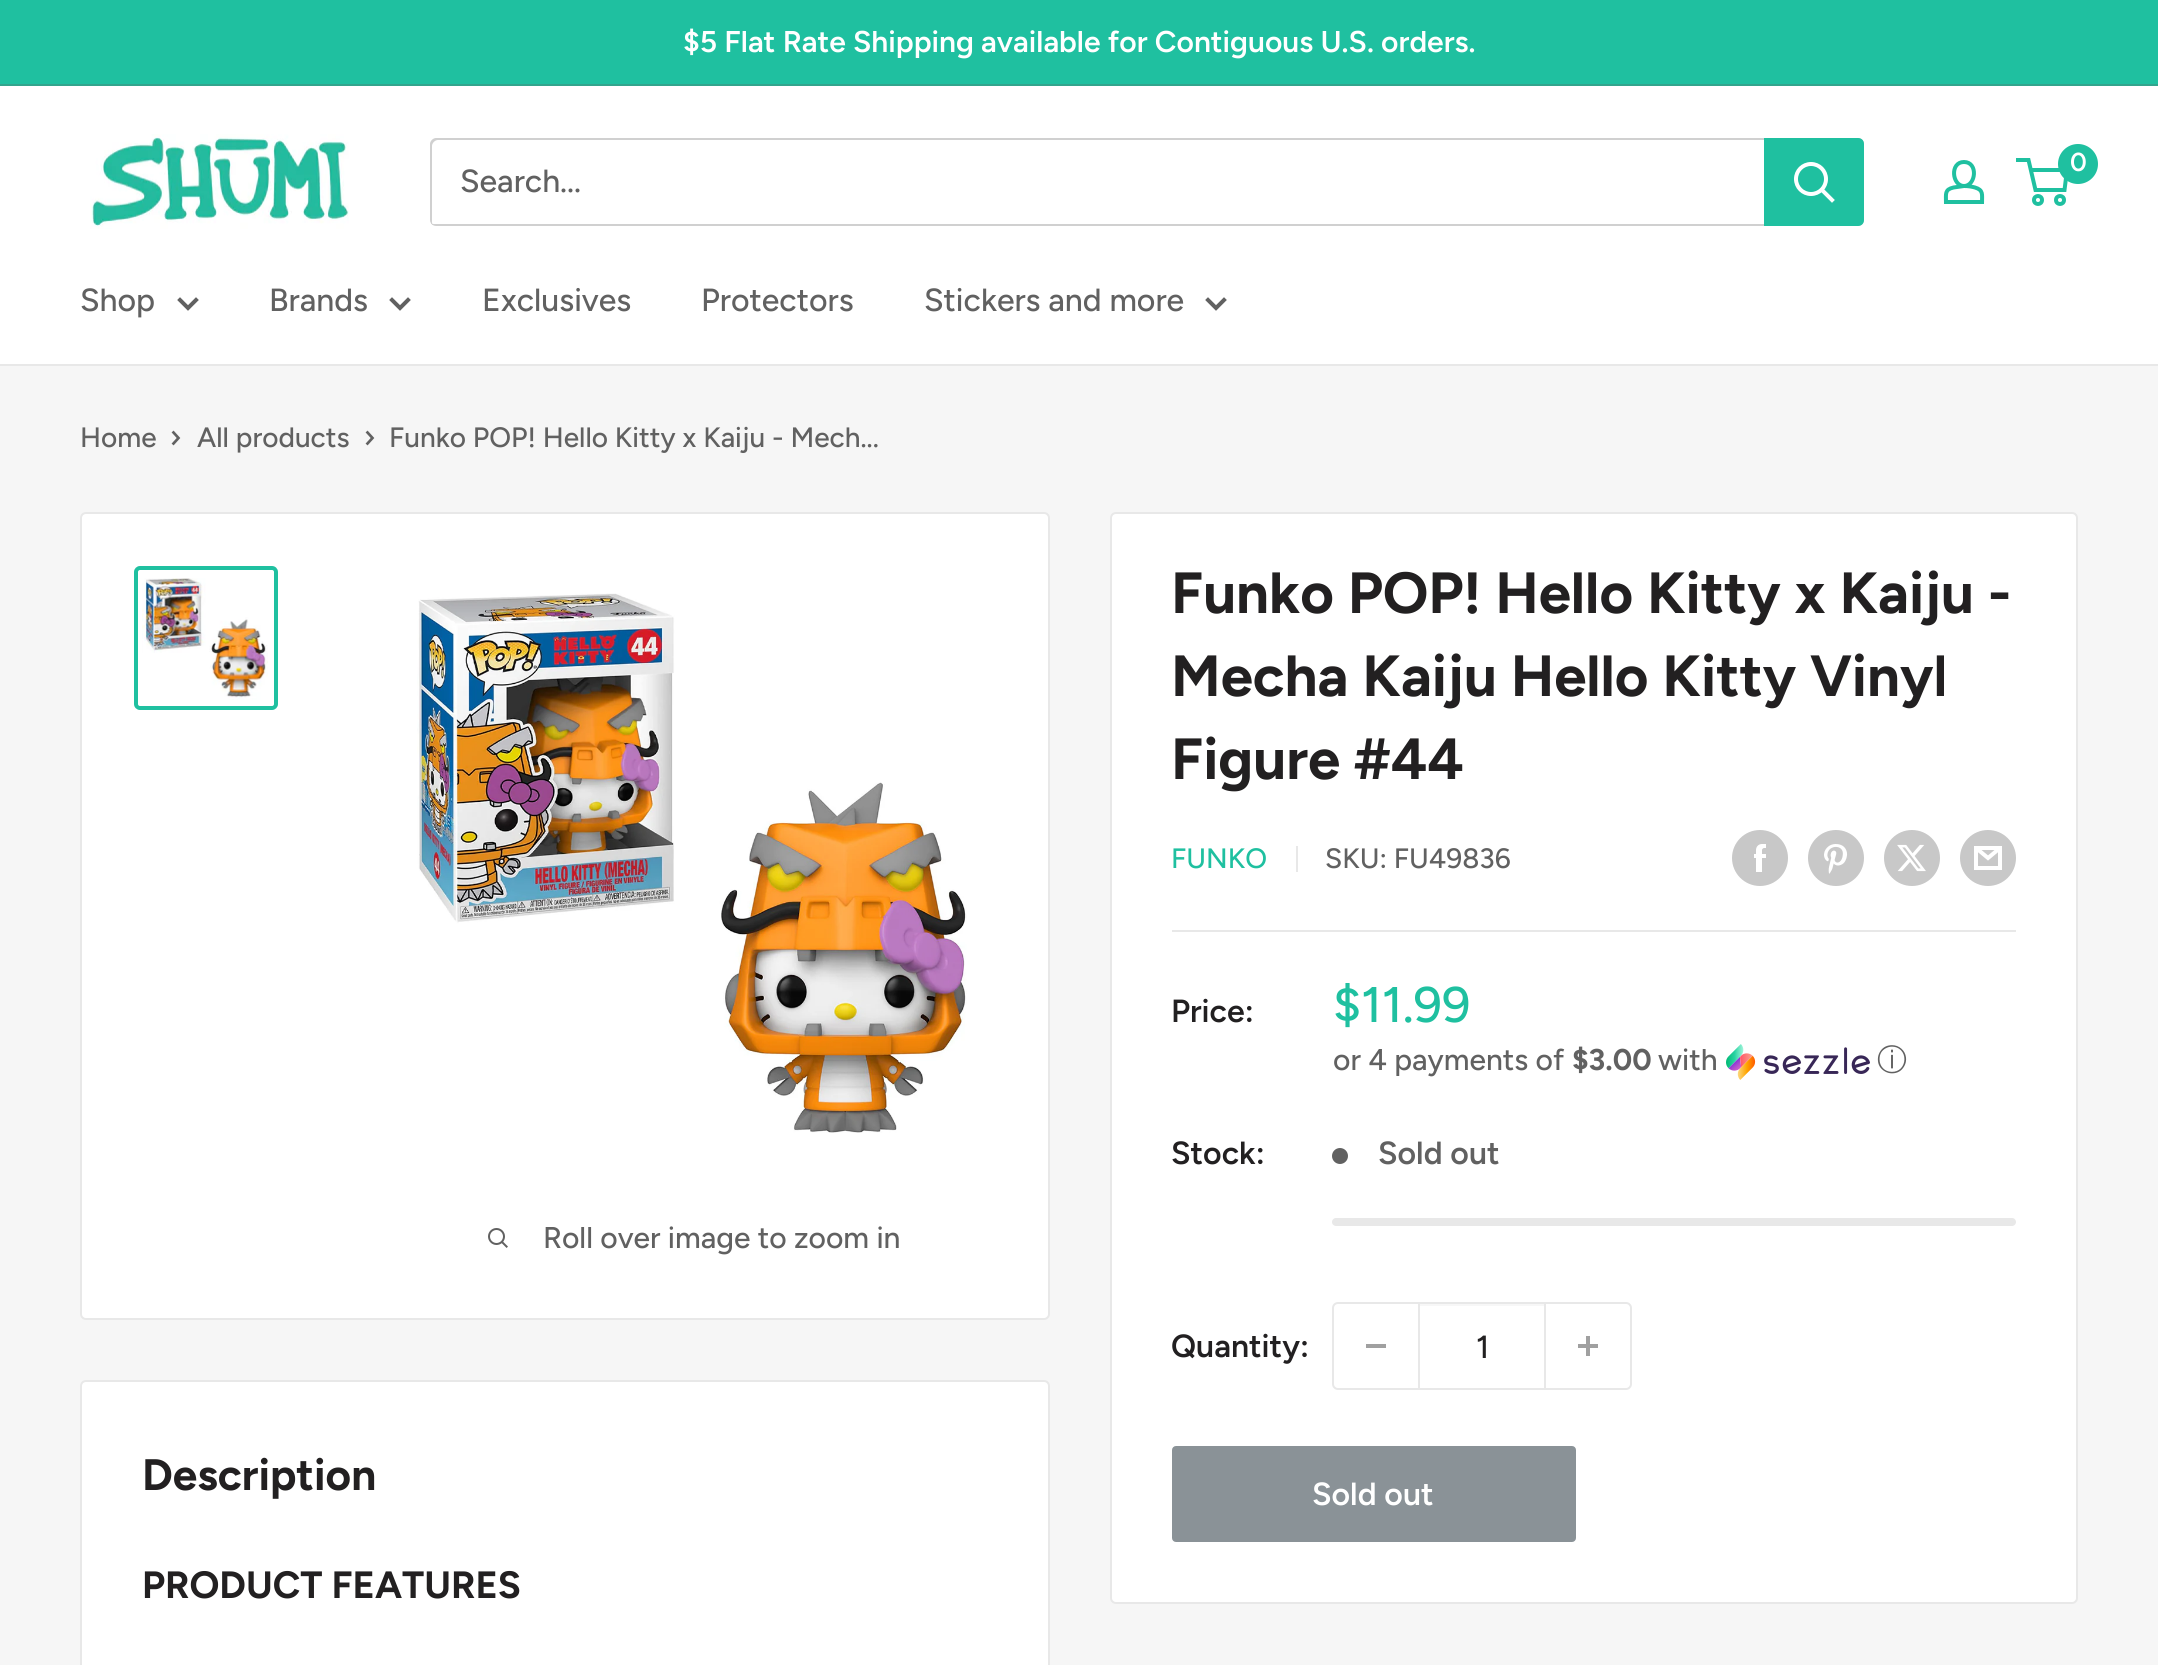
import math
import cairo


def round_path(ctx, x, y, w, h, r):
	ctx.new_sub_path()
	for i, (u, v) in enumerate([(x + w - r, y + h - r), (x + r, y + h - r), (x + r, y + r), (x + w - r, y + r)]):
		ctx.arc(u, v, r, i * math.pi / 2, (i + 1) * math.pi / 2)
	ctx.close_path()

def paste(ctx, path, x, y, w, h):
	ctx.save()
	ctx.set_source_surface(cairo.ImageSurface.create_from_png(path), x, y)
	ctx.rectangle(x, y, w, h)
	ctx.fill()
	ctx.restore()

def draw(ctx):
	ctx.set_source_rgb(0.961, 0.961, 0.961)
	ctx.paint()
	ctx.set_source_rgb(0.122, 0.753, 0.627)
	ctx.rectangle(0, 0, 2158, 84)
	ctx.fill()
	ctx.set_source_rgb(0.2, 0.643, 0.553)
	ctx.rectangle(0, 84, 2158, 2)
	ctx.fill()
	ctx.select_font_face('Figtree SemiBold')
	ctx.set_font_size(30)
	ctx.set_source_rgb(1, 1, 1)
	ctx.move_to(683, 52)
	ctx.show_text('$5 Flat Rate Shipping available for Contiguous U.S. orders.')
	ctx.rectangle(0, 86, 2158, 278)
	ctx.fill()
	paste(ctx, 'media/1.png', 90, 134, 259, 95)
	ctx.new_path()
	ctx.move_to(1964, 186)
	ctx.curve_to(1968, 186, 1971.5, 186.5, 1975, 187.5)
	ctx.curve_to(1983.5, 190, 1982, 194.5, 1982, 202)
	ctx.line_to(1946, 202)
	ctx.curve_to(1946, 194, 1944.5, 189.5, 1953.5, 187.5)
	ctx.close_path()
	ctx.move_to(1964, 186)
	ctx.curve_to(1952, 186, 1949.5, 162, 1964, 162)
	ctx.curve_to(1978.5, 162, 1976, 186, 1964, 186)
	ctx.close_path()
	ctx.set_source_rgb(0.122, 0.753, 0.627)
	ctx.set_line_width(4)
	ctx.stroke()
	ctx.arc(2038, 200, 4, 0, 2 * math.pi)
	ctx.stroke()
	ctx.arc(2060, 200, 4, 0, 2 * math.pi)
	ctx.stroke()
	ctx.new_path()
	ctx.move_to(2030.5, 170)
	ctx.line_to(2067, 170)
	ctx.line_to(2064.5, 190)
	ctx.line_to(2035.5, 190)
	ctx.line_to(2028.5, 160)
	ctx.line_to(2016, 160)
	ctx.stroke()
	ctx.arc(2078, 164, 20, 0, 2 * math.pi)
	ctx.fill()
	ctx.set_font_size(26)
	ctx.set_source_rgb(1, 1, 1)
	ctx.move_to(2070, 171)
	ctx.show_text('0')
	ctx.set_source_rgb(0.816, 0.816, 0.816)
	ctx.new_path()
	ctx.move_to(431, 223)
	ctx.curve_to(432, 225, 434, 226, 436, 226)
	ctx.line_to(1858, 226)
	ctx.curve_to(1861, 226, 1864, 223, 1864, 220)
	ctx.line_to(1864, 144)
	ctx.curve_to(1864, 142, 1863, 140, 1861, 139)
	ctx.curve_to(1862, 140, 1862, 141, 1862, 142)
	ctx.line_to(1862, 218)
	ctx.curve_to(1862, 221, 1859, 224, 1856, 224)
	ctx.line_to(434, 224)
	ctx.curve_to(433, 224, 432, 224, 431, 223)
	ctx.close_path()
	ctx.fill()
	ctx.set_source_rgba(0.38, 0.38, 0.38, 0.3)
	ctx.new_path()
	ctx.move_to(438, 140)
	ctx.line_to(1860, 140)
	ctx.line_to(1863, 141)
	ctx.curve_to(1862, 139, 1860, 138, 1858, 138)
	ctx.line_to(436, 138)
	ctx.curve_to(433, 138, 430, 141, 430, 144)
	ctx.line_to(430, 220)
	ctx.curve_to(430, 222, 431, 224, 433, 225)
	ctx.curve_to(432, 224, 432, 223, 432, 222)
	ctx.line_to(432, 146)
	ctx.curve_to(432, 143, 435, 140, 438, 140)
	ctx.close_path()
	ctx.fill()
	ctx.select_font_face('Figtree Medium')
	ctx.set_font_size(32)
	ctx.set_source_rgb(0.38, 0.38, 0.38)
	ctx.move_to(460, 192)
	ctx.show_text('Search...')
	ctx.set_source_rgb(0.122, 0.753, 0.627)
	ctx.new_path()
	ctx.move_to(1764, 138)
	ctx.line_to(1858, 138)
	ctx.curve_to(1861.5, 138, 1864, 140.5, 1864, 144)
	ctx.line_to(1864, 220)
	ctx.curve_to(1864, 223.5, 1861.5, 226, 1858, 226)
	ctx.line_to(1764, 226)
	ctx.close_path()
	ctx.fill()
	ctx.new_path()
	ctx.move_to(1832, 200)
	ctx.line_to(1822, 190)
	ctx.set_source_rgb(1, 1, 1)
	ctx.set_line_cap(cairo.LINE_CAP_SQUARE)
	ctx.stroke()
	ctx.arc(1811, 179, 15, 0, 2 * math.pi)
	ctx.set_line_cap(cairo.LINE_CAP_BUTT)
	ctx.stroke()
	ctx.set_source_rgb(0.91, 0.91, 0.91)
	ctx.rectangle(0, 364, 2158, 2)
	ctx.fill()
	ctx.set_source_rgb(0.38, 0.38, 0.38)
	ctx.move_to(80, 311)
	ctx.show_text('Shop')
	ctx.new_path()
	ctx.move_to(196, 300)
	ctx.line_to(188, 308)
	ctx.line_to(180, 300)
	ctx.set_line_cap(cairo.LINE_CAP_SQUARE)
	ctx.stroke()
	ctx.move_to(269, 311)
	ctx.show_text('Brands')
	ctx.new_path()
	ctx.move_to(408, 300)
	ctx.line_to(400, 308)
	ctx.line_to(392, 300)
	ctx.stroke()
	for x, y, s in [
		(482, 311, 'Exclusives'),
		(701, 311, 'Protectors'),
		(924, 311, 'Stickers and more'),
	]:
		ctx.move_to(x, y)
		ctx.show_text(s)
	ctx.new_path()
	ctx.move_to(1224, 300)
	ctx.line_to(1216, 308)
	ctx.line_to(1208, 300)
	ctx.stroke()
	ctx.set_font_size(28)
	ctx.move_to(80, 447)
	ctx.show_text('Home')
	ctx.new_path()
	ctx.move_to(173.5, 432.5)
	ctx.line_to(178.5, 438)
	ctx.line_to(173.5, 443.5)
	ctx.set_line_width(2.7)
	ctx.stroke()
	ctx.move_to(197, 447)
	ctx.show_text('All products')
	ctx.new_path()
	ctx.move_to(367.5, 432.5)
	ctx.line_to(372.5, 438)
	ctx.line_to(367.5, 443.5)
	ctx.stroke()
	ctx.move_to(389, 447)
	ctx.show_text('Funko POP! Hello Kitty x Kaiju - Mech...')
	ctx.set_source_rgb(1, 1, 1)
	round_path(ctx, 81, 513, 968, 806, 5)
	ctx.fill_preserve()
	ctx.set_source_rgb(0.91, 0.91, 0.91)
	ctx.set_line_width(2)
	ctx.set_line_cap(cairo.LINE_CAP_BUTT)
	ctx.stroke()
	round_path(ctx, 136, 568, 140, 140, 4)
	ctx.set_source_rgb(0.122, 0.753, 0.627)
	ctx.set_line_width(4)
	ctx.stroke()
	paste(ctx, 'media/2.png', 142, 578, 126, 122)
	paste(ctx, 'media/3.png', 417, 593, 550, 540)
	paste(ctx, 'media/4.png', 488, 1228, 20, 20)
	ctx.set_font_size(30)
	ctx.set_source_rgb(0.38, 0.38, 0.38)
	ctx.move_to(543, 1248)
	ctx.show_text('Roll over image to zoom in')
	ctx.set_source_rgb(1, 1, 1)
	round_path(ctx, 1111, 513, 966, 1090, 5)
	ctx.fill_preserve()
	ctx.set_source_rgb(0.91, 0.91, 0.91)
	ctx.set_line_width(2)
	ctx.stroke()
	ctx.select_font_face('Figtree', cairo.FONT_SLANT_NORMAL, cairo.FONT_WEIGHT_BOLD)
	ctx.set_font_size(58)
	ctx.set_source_rgb(0.133, 0.125, 0.129)
	for x, y, s in [
		(1171, 613, 'Funko POP! Hello Kitty x Kaiju -'),
		(1171, 696, 'Mecha Kaiju Hello Kitty Vinyl'),
		(1171, 779, 'Figure #44'),
	]:
		ctx.move_to(x, y)
		ctx.show_text(s)
	ctx.select_font_face('Figtree Medium')
	ctx.set_font_size(28)
	ctx.set_source_rgb(0.122, 0.753, 0.627)
	ctx.move_to(1171, 868)
	ctx.show_text('FUNKO')
	ctx.set_source_rgb(0.91, 0.91, 0.91)
	ctx.rectangle(1296, 846, 2, 26)
	ctx.fill()
	ctx.set_source_rgb(0.38, 0.38, 0.38)
	ctx.move_to(1325, 868)
	ctx.show_text('SKU: FU49836')
	paste(ctx, 'media/5.png', 1732, 830, 56, 56)
	paste(ctx, 'media/6.png', 1808, 830, 56, 56)
	paste(ctx, 'media/7.png', 1884, 830, 56, 56)
	paste(ctx, 'media/8.png', 1960, 830, 56, 56)
	ctx.set_source_rgb(0.91, 0.91, 0.91)
	ctx.rectangle(1172, 930, 844, 2)
	ctx.fill()
	ctx.select_font_face('Figtree SemiBold')
	ctx.set_font_size(32)
	ctx.set_source_rgb(0.133, 0.125, 0.129)
	ctx.move_to(1171, 1022)
	ctx.show_text('Price:')
	ctx.select_font_face('Figtree Medium')
	ctx.set_font_size(50)
	ctx.set_source_rgb(0.122, 0.753, 0.627)
	ctx.move_to(1333, 1022)
	ctx.show_text('$11.99')
	ctx.set_font_size(30)
	ctx.set_source_rgb(0.38, 0.38, 0.38)
	ctx.move_to(1333, 1070)
	ctx.show_text('or 4 payments of')
	ctx.select_font_face('Figtree', cairo.FONT_SLANT_NORMAL, cairo.FONT_WEIGHT_BOLD)
	ctx.move_to(1572, 1070)
	ctx.show_text('$3.00')
	ctx.select_font_face('Figtree Medium')
	ctx.move_to(1658, 1070)
	ctx.show_text('with')
	paste(ctx, 'media/9.png', 1726, 1044, 144, 36)
	ctx.select_font_face('WenQuanYi Zen Hei Medium')
	ctx.move_to(1877, 1070)
	ctx.show_text('ⓘ')
	ctx.select_font_face('Figtree SemiBold')
	ctx.set_font_size(32)
	ctx.set_source_rgb(0.133, 0.125, 0.129)
	ctx.move_to(1171, 1164)
	ctx.show_text('Stock:')
	ctx.set_source_rgb(0.38, 0.38, 0.38)
	ctx.new_path()
	ctx.arc(1340, 1156, 8, 0, 2 * math.pi)
	ctx.fill()
	ctx.move_to(1378, 1164)
	ctx.show_text('Sold out')
	ctx.set_source_rgb(0.91, 0.91, 0.91)
	round_path(ctx, 1332, 1218, 684, 8, 4)
	ctx.fill()
	ctx.set_source_rgb(0.133, 0.125, 0.129)
	ctx.move_to(1171, 1357)
	ctx.show_text('Quantity:')
	round_path(ctx, 1333, 1303, 298, 86, 5)
	ctx.set_source_rgb(0.91, 0.91, 0.91)
	ctx.stroke()
	ctx.set_source_rgb(0.627, 0.627, 0.627)
	ctx.rectangle(1366, 1344, 20, 4)
	ctx.fill()
	ctx.set_source_rgb(0.965, 0.965, 0.965)
	ctx.rectangle(1420, 1304, 124, 2)
	ctx.fill()
	ctx.set_source_rgb(0.91, 0.91, 0.91)
	ctx.rectangle(1544, 1304, 2, 84)
	ctx.rectangle(1418, 1304, 2, 84)
	ctx.fill()
	ctx.select_font_face('Figtree Medium')
	ctx.set_source_rgb(0.133, 0.125, 0.129)
	ctx.move_to(1476, 1358)
	ctx.show_text('1')
	paste(ctx, 'media/10.png', 1578, 1336, 20, 20)
	ctx.set_source_rgb(0.541, 0.573, 0.592)
	round_path(ctx, 1173, 1447, 402, 94, 3)
	ctx.fill_preserve()
	ctx.stroke()
	ctx.select_font_face('Figtree SemiBold')
	ctx.set_source_rgb(1, 1, 1)
	ctx.move_to(1312, 1505)
	ctx.show_text('Sold out')
	round_path(ctx, 81, 1381, 968, 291, 5)
	ctx.fill_preserve()
	ctx.set_source_rgb(0.91, 0.91, 0.91)
	ctx.stroke()
	ctx.select_font_face('Figtree', cairo.FONT_SLANT_NORMAL, cairo.FONT_WEIGHT_BOLD)
	ctx.set_font_size(44)
	ctx.set_source_rgb(0.133, 0.125, 0.129)
	ctx.move_to(142, 1490)
	ctx.show_text('Description')
	ctx.set_font_size(38)
	ctx.move_to(142, 1598)
	ctx.show_text('PRODUCT FEATURES')


surface = cairo.ImageSurface(cairo.FORMAT_RGB24, 2158, 1665)
ctx = cairo.Context(surface)
options = cairo.FontOptions()
options.set_hint_metrics(cairo.HINT_METRICS_OFF)
options.set_hint_style(cairo.HINT_STYLE_NONE)
ctx.set_font_options(options)
ctx.set_miter_limit(4)
draw(ctx)
surface.write_to_png('image.png')
